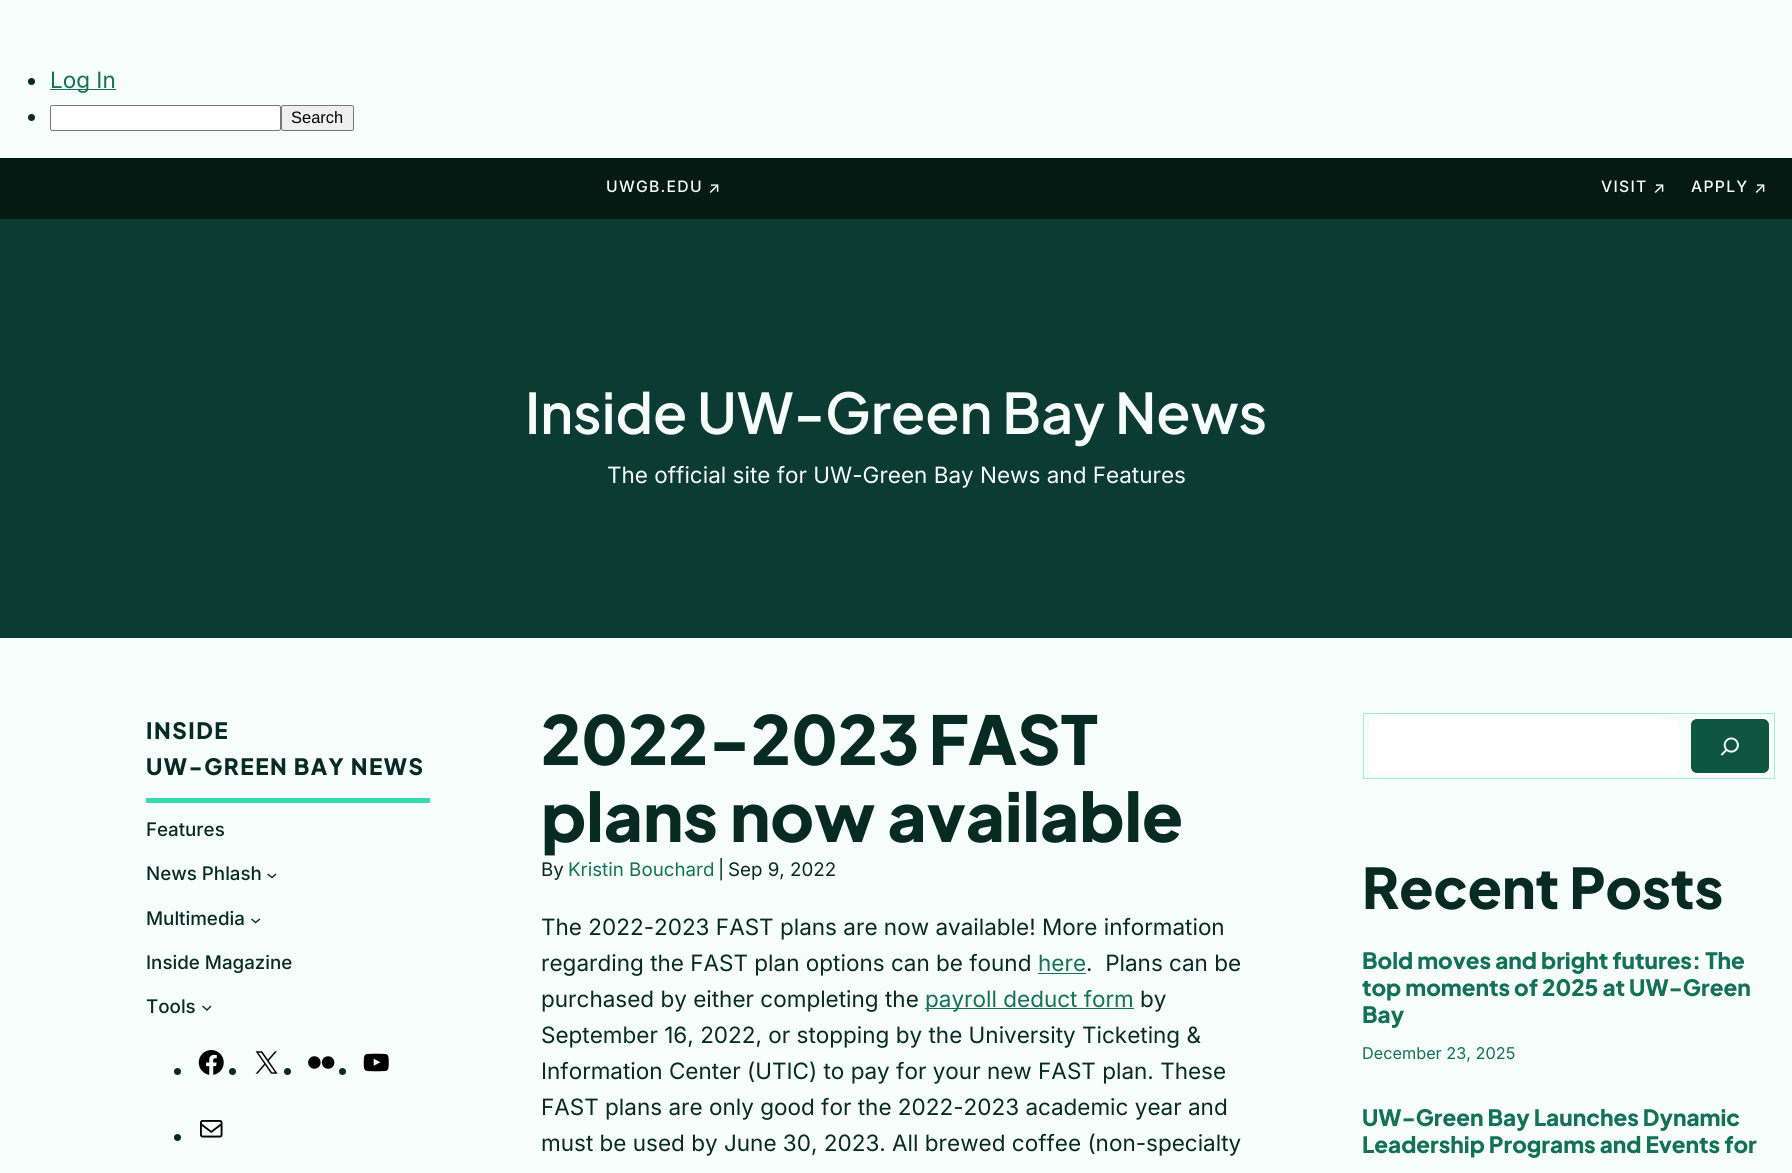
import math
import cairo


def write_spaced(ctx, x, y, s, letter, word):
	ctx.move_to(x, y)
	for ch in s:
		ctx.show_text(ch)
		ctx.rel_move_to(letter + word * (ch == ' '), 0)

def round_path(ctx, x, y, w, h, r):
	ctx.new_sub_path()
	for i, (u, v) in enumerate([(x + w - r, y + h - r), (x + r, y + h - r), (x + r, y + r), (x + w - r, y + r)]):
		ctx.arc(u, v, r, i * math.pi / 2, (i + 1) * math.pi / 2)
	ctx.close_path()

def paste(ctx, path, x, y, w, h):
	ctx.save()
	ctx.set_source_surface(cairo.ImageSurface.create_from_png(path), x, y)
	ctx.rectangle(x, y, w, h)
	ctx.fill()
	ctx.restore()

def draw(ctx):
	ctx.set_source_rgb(0.965, 0.992, 0.984)
	ctx.paint()
	ctx.set_source_rgb(0.031, 0.169, 0.125)
	ctx.arc(31.5, 81.5, 3.5, 0, 2 * math.pi)
	ctx.fill()
	ctx.set_source_rgb(0.078, 0.443, 0.329)
	ctx.rectangle(50, 89, 66, 1)
	ctx.fill()
	ctx.select_font_face('Inter')
	ctx.set_font_size(22.5)
	ctx.move_to(50, 88)
	ctx.show_text('Log In')
	ctx.set_source_rgb(0.031, 0.169, 0.125)
	ctx.new_path()
	ctx.arc(31.5, 117.5, 3.5, 0, 2 * math.pi)
	ctx.fill()
	ctx.set_source_rgb(1, 1, 1)
	round_path(ctx, 50.5, 105.5, 230, 25, 2)
	ctx.fill_preserve()
	ctx.set_source_rgb(0.463, 0.463, 0.463)
	ctx.set_line_width(1)
	ctx.stroke()
	ctx.set_source_rgb(0.937, 0.937, 0.937)
	round_path(ctx, 281.5, 105.5, 72, 25, 2)
	ctx.fill_preserve()
	ctx.set_source_rgb(0.463, 0.463, 0.463)
	ctx.stroke()
	ctx.select_font_face('Liberation Sans')
	ctx.set_font_size(16.5)
	ctx.set_source_rgb(0, 0, 0)
	ctx.move_to(291, 123)
	ctx.show_text('Search')
	ctx.set_source_rgb(0.02, 0.102, 0.075)
	ctx.rectangle(0, 158, 1792, 61)
	ctx.fill()
	ctx.select_font_face('Inter Medium')
	ctx.set_font_size(15.75)
	ctx.set_source_rgb(0.965, 0.992, 0.984)
	for x, y, s in [
		(606, 192, 'UWGB.EDU'),
		(708, 193, '↗'),
		(1601, 192, 'VISIT'),
		(1653, 193, '↗'),
		(1691, 192, 'APPLY'),
		(1754, 193, '↗'),
	]:
		write_spaced(ctx, x, y, s, 1.25, 0)
	ctx.set_source_rgb(0.047, 0.231, 0.2)
	ctx.rectangle(0, 219, 1792, 419)
	ctx.fill()
	ctx.select_font_face('Plus Jakarta Sans SemiBold')
	ctx.set_font_size(56)
	ctx.set_source_rgb(0.965, 0.992, 0.984)
	ctx.move_to(525, 434)
	ctx.show_text('Inside UW-Green Bay News')
	ctx.select_font_face('Inter')
	ctx.set_font_size(22.5)
	ctx.move_to(607, 483)
	ctx.show_text('The official site for UW-Green Bay News and Features')
	ctx.select_font_face('Plus Jakarta Sans ExtraBold')
	ctx.set_source_rgb(0.031, 0.169, 0.125)
	write_spaced(ctx, 146, 739, 'INSIDE', 1.5, 0)
	write_spaced(ctx, 146, 775, 'UW-GREEN BAY NEWS', 1.5, 0)
	ctx.set_source_rgb(0.216, 0.863, 0.663)
	ctx.rectangle(146, 798, 284, 5)
	ctx.fill()
	ctx.select_font_face('Inter Medium')
	ctx.set_font_size(18.75)
	ctx.set_source_rgb(0.031, 0.169, 0.125)
	ctx.move_to(146, 836)
	ctx.show_text('Features')
	ctx.move_to(146, 880)
	ctx.show_text('News Phlash')
	ctx.new_path()
	ctx.move_to(267.5, 874)
	ctx.line_to(272, 877.5)
	ctx.line_to(276, 874)
	ctx.set_line_width(1.4)
	ctx.stroke()
	ctx.move_to(146, 925)
	ctx.show_text('Multimedia')
	ctx.new_path()
	ctx.move_to(251.5, 919)
	ctx.line_to(255.5, 922.5)
	ctx.line_to(260, 919)
	ctx.stroke()
	ctx.move_to(146, 969)
	ctx.show_text('Inside Magazine')
	ctx.move_to(146, 1013)
	ctx.show_text('Tools')
	ctx.new_path()
	ctx.move_to(202.5, 1006)
	ctx.line_to(207, 1010)
	ctx.line_to(211, 1006)
	ctx.stroke()
	ctx.arc(177.5, 1071.5, 3.5, 0, 2 * math.pi)
	ctx.fill()
	paste(ctx, 'media/1.png', 198, 1050, 26, 25)
	ctx.arc(232.5, 1071.5, 3.5, 0, 2 * math.pi)
	ctx.fill()
	paste(ctx, 'media/2.png', 255, 1051, 23, 23)
	paste(ctx, 'media/3.png', 308, 1056, 27, 13)
	ctx.arc(287.5, 1071.5, 3.5, 0, 2 * math.pi)
	ctx.fill()
	ctx.arc(342.5, 1071.5, 3.5, 0, 2 * math.pi)
	ctx.fill()
	paste(ctx, 'media/4.png', 363, 1053, 26, 19)
	ctx.arc(177.5, 1137.5, 3.5, 0, 2 * math.pi)
	ctx.fill()
	paste(ctx, 'media/5.png', 200, 1120, 23, 18)
	ctx.select_font_face('Plus Jakarta Sans ExtraBold')
	ctx.set_font_size(67.25)
	write_spaced(ctx, 541, 765, '2022-2023 FAST', 0, -3)
	ctx.move_to(541, 842)
	ctx.show_text('plans now available')
	ctx.select_font_face('Inter')
	ctx.set_font_size(18.75)
	ctx.move_to(541, 876)
	ctx.show_text('By')
	ctx.set_source_rgb(0.078, 0.443, 0.329)
	ctx.move_to(568, 876)
	ctx.show_text('Kristin Bouchard')
	ctx.set_source_rgb(0.031, 0.169, 0.125)
	ctx.move_to(718, 876)
	ctx.show_text('|')
	ctx.move_to(728, 876)
	ctx.show_text('Sep 9, 2022')
	ctx.set_font_size(22.5)
	ctx.move_to(541, 935)
	ctx.show_text('The 2022-2023 FAST plans are now available! More information')
	ctx.move_to(541, 971)
	ctx.show_text('regarding the FAST plan options can be found')
	ctx.set_source_rgb(0.078, 0.443, 0.329)
	ctx.move_to(1038, 971)
	ctx.show_text('here')
	ctx.rectangle(1038, 973, 48, 1)
	ctx.fill()
	ctx.set_source_rgb(0.031, 0.169, 0.125)
	ctx.move_to(1086, 971)
	ctx.show_text('.  Plans can be')
	ctx.move_to(541, 1007)
	ctx.show_text('purchased by either completing the')
	ctx.set_source_rgb(0.078, 0.443, 0.329)
	ctx.rectangle(925, 1008, 209, 1)
	ctx.fill()
	ctx.move_to(925, 1007)
	ctx.show_text('payroll deduct form')
	ctx.set_source_rgb(0.031, 0.169, 0.125)
	for x, y, s in [
		(1140, 1007, 'by'),
		(541, 1043, 'September 16, 2022, or stopping by the University Ticketing &'),
		(541, 1079, 'Information Center (UTIC) to pay for your new FAST plan. These'),
		(541, 1115, 'FAST plans are only good for the 2022-2023 academic year and'),
		(541, 1151, 'must be used by June 30, 2023. All brewed coffee (non-specialty'),
	]:
		ctx.move_to(x, y)
		ctx.show_text(s)
	ctx.rectangle(1363.5, 713.5, 411, 65)
	ctx.set_source_rgb(0.624, 0.933, 0.839)
	ctx.set_line_width(1)
	ctx.stroke()
	ctx.set_source_rgb(1, 1, 1)
	round_path(ctx, 1369, 719, 310, 54, 6)
	ctx.fill()
	ctx.set_source_rgb(0.059, 0.337, 0.251)
	round_path(ctx, 1691, 719, 78, 54, 6)
	ctx.fill()
	paste(ctx, 'media/6.png', 1720, 737, 19, 19)
	ctx.select_font_face('Plus Jakarta Sans ExtraBold')
	ctx.set_font_size(56)
	ctx.set_source_rgb(0.031, 0.169, 0.125)
	ctx.move_to(1362, 909)
	ctx.show_text('Recent Posts')
	ctx.set_font_size(22.5)
	ctx.set_source_rgb(0.078, 0.443, 0.329)
	for x, y, s in [
		(1362, 969, 'Bold moves and bright futures: The'),
		(1362, 996, 'top moments of 2025 at UW-Green'),
		(1362, 1023, 'Bay'),
	]:
		ctx.move_to(x, y)
		ctx.show_text(s)
	ctx.select_font_face('Inter')
	ctx.set_font_size(16.25)
	ctx.move_to(1362, 1059)
	ctx.show_text('December 23, 2025')
	ctx.select_font_face('Plus Jakarta Sans ExtraBold')
	ctx.set_font_size(22.5)
	ctx.move_to(1362, 1126)
	ctx.show_text('UW-Green Bay Launches Dynamic')
	ctx.move_to(1362, 1153)
	ctx.show_text('Leadership Programs and Events for')


surface = cairo.ImageSurface(cairo.FORMAT_RGB24, 1792, 1173)
ctx = cairo.Context(surface)
options = cairo.FontOptions()
options.set_hint_metrics(cairo.HINT_METRICS_OFF)
options.set_hint_style(cairo.HINT_STYLE_NONE)
ctx.set_font_options(options)
ctx.set_miter_limit(4)
draw(ctx)
surface.write_to_png('image.png')
